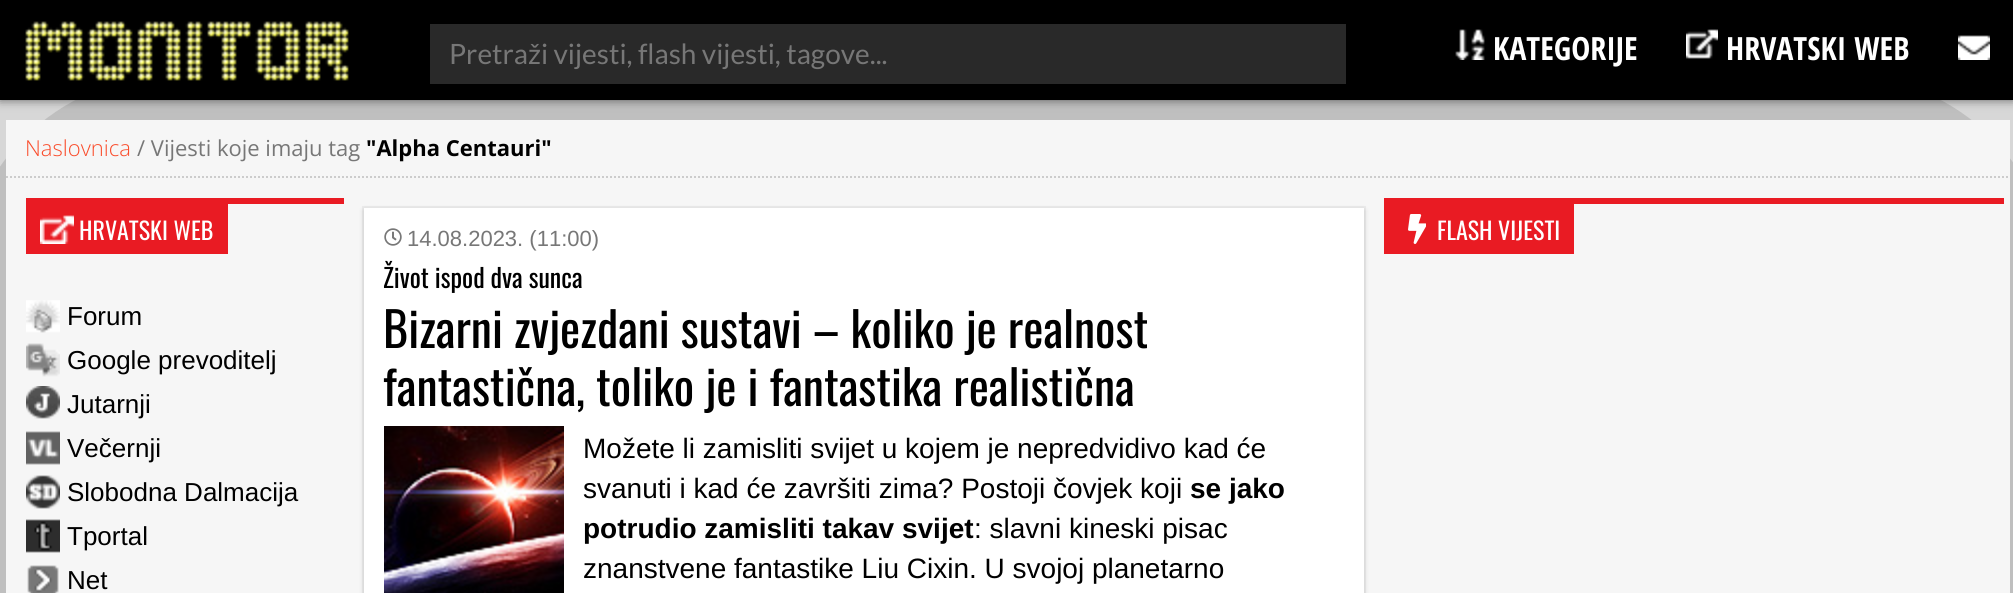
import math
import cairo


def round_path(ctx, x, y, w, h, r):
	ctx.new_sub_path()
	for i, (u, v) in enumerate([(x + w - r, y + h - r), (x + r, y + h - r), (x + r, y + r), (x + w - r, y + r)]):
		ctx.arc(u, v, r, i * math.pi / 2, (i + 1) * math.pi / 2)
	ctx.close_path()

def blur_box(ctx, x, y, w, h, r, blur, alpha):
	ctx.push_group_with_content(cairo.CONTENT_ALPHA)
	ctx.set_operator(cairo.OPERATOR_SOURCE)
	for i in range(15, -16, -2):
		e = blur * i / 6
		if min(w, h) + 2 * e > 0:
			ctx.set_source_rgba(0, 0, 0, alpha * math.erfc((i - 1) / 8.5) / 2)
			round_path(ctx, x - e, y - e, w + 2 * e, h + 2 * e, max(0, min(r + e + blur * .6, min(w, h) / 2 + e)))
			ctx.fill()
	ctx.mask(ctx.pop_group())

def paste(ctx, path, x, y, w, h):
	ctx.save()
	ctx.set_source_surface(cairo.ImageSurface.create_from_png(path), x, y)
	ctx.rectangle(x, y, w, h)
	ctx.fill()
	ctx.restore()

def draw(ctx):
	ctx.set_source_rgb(1, 1, 1)
	ctx.paint()
	ctx.set_source_rgb(0.467, 0.467, 0.467)
	blur_box(ctx, 0, 0, 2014, 100, 0, 5, 1)
	ctx.set_source_rgb(0, 0, 0)
	blur_box(ctx, 86, 200, 1844, 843, 0, 150, 1)
	ctx.set_source_rgb(0, 0, 0)
	ctx.rectangle(0, 0, 2013, 100)
	ctx.fill()
	paste(ctx, 'media/1.png', 25, 21, 324, 60)
	ctx.set_source_rgb(0.161, 0.161, 0.161)
	ctx.rectangle(430, 24, 916, 60)
	ctx.fill()
	ctx.select_font_face('Lato')
	ctx.set_font_size(28)
	ctx.set_source_rgb(0.467, 0.467, 0.467)
	ctx.move_to(449, 64)
	ctx.show_text('Pretraži vijesti, flash vijesti, tagove...')
	paste(ctx, 'media/2.png', 1455, 29, 30, 31)
	ctx.select_font_face('Open Sans Condensed', cairo.FONT_SLANT_NORMAL, cairo.FONT_WEIGHT_BOLD)
	ctx.set_font_size(32)
	ctx.set_source_rgb(1, 1, 1)
	ctx.move_to(1493, 60)
	ctx.show_text('KATEGORIJE')
	paste(ctx, 'media/3.png', 1686, 29, 32, 30)
	ctx.move_to(1726, 60)
	ctx.show_text('HRVATSKI WEB')
	paste(ctx, 'media/4.png', 1958, 35, 32, 25)
	ctx.set_source_rgb(0.961, 0.961, 0.961)
	ctx.rectangle(6, 120, 2004, 473)
	ctx.fill()
	ctx.new_path()
	ctx.move_to(6, 177)
	ctx.line_to(2010, 177)
	ctx.set_source_rgb(0.8, 0.8, 0.8)
	ctx.set_dash([2, 2])
	ctx.stroke()
	ctx.select_font_face('Open Sans Light')
	ctx.set_font_size(22)
	ctx.set_source_rgb(0.98, 0.294, 0.165)
	ctx.move_to(25, 156)
	ctx.show_text('Naslovnica')
	ctx.select_font_face('Open Sans')
	ctx.set_source_rgb(0.467, 0.467, 0.467)
	ctx.move_to(137, 156)
	ctx.show_text('/ Vijesti koje imaju tag')
	ctx.select_font_face('Open Sans', cairo.FONT_SLANT_NORMAL, cairo.FONT_WEIGHT_BOLD)
	ctx.set_source_rgb(0, 0, 0)
	ctx.move_to(366, 156)
	ctx.show_text('"Alpha Centauri"')
	ctx.set_source_rgb(0.914, 0.106, 0.137)
	ctx.rectangle(26, 198, 318, 6)
	ctx.fill()
	ctx.rectangle(26, 204, 202, 50)
	ctx.fill()
	paste(ctx, 'media/5.png', 40, 215, 34, 29)
	ctx.select_font_face('Oswald')
	ctx.set_font_size(24)
	ctx.set_source_rgb(1, 1, 1)
	ctx.move_to(79, 240)
	ctx.show_text('HRVATSKI WEB')
	paste(ctx, 'media/6.png', 26, 300, 34, 33)
	ctx.select_font_face('Liberation Sans')
	ctx.set_font_size(26)
	ctx.set_source_rgb(0, 0, 0)
	ctx.move_to(67, 325)
	ctx.show_text('Forum')
	paste(ctx, 'media/7.png', 26, 343, 34, 34)
	ctx.move_to(67, 369)
	ctx.show_text('Google prevoditelj')
	paste(ctx, 'media/8.png', 26, 386, 34, 33)
	ctx.move_to(67, 413)
	ctx.show_text('Jutarnji')
	paste(ctx, 'media/9.png', 26, 431, 34, 34)
	ctx.move_to(67, 457)
	ctx.show_text('Večernji')
	paste(ctx, 'media/10.png', 26, 475, 34, 34)
	ctx.move_to(67, 501)
	ctx.show_text('Slobodna Dalmacija')
	paste(ctx, 'media/11.png', 26, 519, 34, 34)
	ctx.move_to(67, 545)
	ctx.show_text('Tportal')
	paste(ctx, 'media/12.png', 27, 565, 32, 28)
	ctx.move_to(67, 589)
	ctx.show_text('Net')
	ctx.rectangle(363, 207, 1002, 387)
	ctx.set_source_rgb(0.922, 0.922, 0.922)
	ctx.set_dash([])
	ctx.stroke()
	ctx.set_source_rgb(0, 0, 0)
	blur_box(ctx, 364, 210, 1000, 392, 0, 3, 0.16)
	ctx.set_source_rgb(1, 1, 1)
	ctx.rectangle(364, 208, 1000, 385)
	ctx.fill()
	paste(ctx, 'media/13.png', 384, 228, 18, 18)
	ctx.set_font_size(22)
	ctx.set_source_rgb(0.467, 0.467, 0.467)
	ctx.move_to(407, 246)
	ctx.show_text('14.08.2023. (11:00)')
	ctx.select_font_face('Oswald')
	ctx.set_font_size(26)
	ctx.set_source_rgb(0, 0, 0)
	ctx.move_to(383, 288)
	ctx.show_text('Život ispod dva sunca')
	ctx.set_font_size(48)
	ctx.move_to(383, 348)
	ctx.show_text('Bizarni zvjezdani sustavi – koliko je realnost')
	ctx.move_to(383, 406)
	ctx.show_text('fantastična, toliko je i fantastika realistična')
	paste(ctx, 'media/14.png', 384, 426, 180, 167)
	ctx.select_font_face('Liberation Sans')
	ctx.set_font_size(28)
	ctx.move_to(583, 458)
	ctx.show_text('Možete li zamisliti svijet u kojem je nepredvidivo kad će')
	ctx.move_to(583, 498)
	ctx.show_text('svanuti i kad će završiti zima? Postoji čovjek koji')
	ctx.select_font_face('Liberation Sans', cairo.FONT_SLANT_NORMAL, cairo.FONT_WEIGHT_BOLD)
	ctx.move_to(1190, 498)
	ctx.show_text('se jako')
	ctx.move_to(583, 538)
	ctx.show_text('potrudio zamisliti takav svijet')
	ctx.select_font_face('Liberation Sans')
	ctx.move_to(974, 538)
	ctx.show_text(': slavni kineski pisac')
	ctx.move_to(583, 578)
	ctx.show_text('znanstvene fantastike Liu Cixin. U svojoj planetarno')
	ctx.set_source_rgb(0.914, 0.106, 0.137)
	ctx.rectangle(1384, 198, 620, 6)
	ctx.fill()
	ctx.rectangle(1384, 204, 190, 50)
	ctx.fill()
	paste(ctx, 'media/15.png', 1408, 214, 18, 30)
	ctx.select_font_face('Oswald')
	ctx.set_font_size(24)
	ctx.set_source_rgb(1, 1, 1)
	ctx.move_to(1437, 240)
	ctx.show_text('FLASH VIJESTI')


surface = cairo.ImageSurface(cairo.FORMAT_RGB24, 2013, 593)
ctx = cairo.Context(surface)
options = cairo.FontOptions()
options.set_hint_metrics(cairo.HINT_METRICS_OFF)
options.set_hint_style(cairo.HINT_STYLE_NONE)
ctx.set_font_options(options)
ctx.set_miter_limit(4)
draw(ctx)
surface.write_to_png('image.png')
